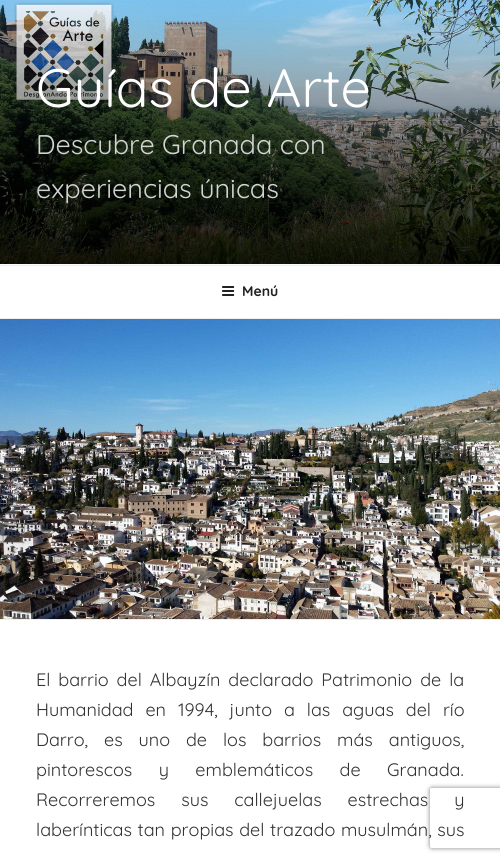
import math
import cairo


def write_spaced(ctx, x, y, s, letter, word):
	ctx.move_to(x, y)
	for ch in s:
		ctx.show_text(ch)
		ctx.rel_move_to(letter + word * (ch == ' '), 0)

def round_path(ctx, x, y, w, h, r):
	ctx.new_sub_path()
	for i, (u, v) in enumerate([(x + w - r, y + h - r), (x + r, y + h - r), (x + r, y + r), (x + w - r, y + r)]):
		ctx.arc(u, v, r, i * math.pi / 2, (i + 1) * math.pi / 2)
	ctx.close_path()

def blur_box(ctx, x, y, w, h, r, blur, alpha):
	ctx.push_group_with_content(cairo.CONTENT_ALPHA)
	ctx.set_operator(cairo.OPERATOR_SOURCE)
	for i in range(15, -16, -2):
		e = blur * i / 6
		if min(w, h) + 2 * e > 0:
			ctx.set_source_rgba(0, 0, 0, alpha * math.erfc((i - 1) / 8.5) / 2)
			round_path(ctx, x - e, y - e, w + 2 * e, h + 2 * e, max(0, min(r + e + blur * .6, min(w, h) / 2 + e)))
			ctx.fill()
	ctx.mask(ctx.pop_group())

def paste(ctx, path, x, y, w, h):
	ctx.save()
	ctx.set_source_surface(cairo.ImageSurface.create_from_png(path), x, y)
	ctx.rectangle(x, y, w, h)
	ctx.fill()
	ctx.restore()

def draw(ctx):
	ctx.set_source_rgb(1, 1, 1)
	ctx.paint()
	ctx.set_source_rgb(0.98, 0.98, 0.98)
	ctx.rectangle(0, 264, 500, 1)
	ctx.fill()
	paste(ctx, 'media/1.png', 0, 0, 500, 264)
	ctx.select_font_face('Quicksand')
	ctx.set_font_size(54)
	ctx.set_source_rgb(1, 1, 1)
	ctx.move_to(36, 107)
	ctx.show_text('Guías de Arte')
	ctx.set_font_size(27)
	ctx.set_source_rgb(0.82, 0.831, 0.816)
	ctx.move_to(36, 154)
	ctx.show_text('Descubre Granada con')
	ctx.move_to(36, 198)
	ctx.show_text('experiencias únicas')
	ctx.set_source_rgb(0.933, 0.933, 0.933)
	ctx.rectangle(0, 265, 500, 1)
	ctx.fill()
	ctx.rectangle(0, 318, 500, 1)
	ctx.fill()
	paste(ctx, 'media/2.png', 222, 286, 13, 10)
	ctx.select_font_face('Quicksand', cairo.FONT_SLANT_NORMAL, cairo.FONT_WEIGHT_BOLD)
	ctx.set_font_size(14)
	ctx.set_source_rgb(0.133, 0.133, 0.133)
	ctx.move_to(242, 296)
	ctx.show_text('Menú')
	ctx.set_source_rgb(0.933, 0.933, 0.933)
	ctx.rectangle(0, 619, 500, 1)
	ctx.fill()
	paste(ctx, 'media/3.png', 0, 319, 500, 300)
	ctx.select_font_face('Quicksand')
	ctx.set_font_size(18)
	ctx.set_source_rgb(0.2, 0.2, 0.2)
	write_spaced(ctx, 36, 686, 'El barrio del Albayzín declarado Patrimonio de la', 0, 3)
	write_spaced(ctx, 36, 716, 'Humanidad en 1994, junto a las aguas del río', 0, 7)
	write_spaced(ctx, 36, 746, 'Darro, es uno de los barrios más antiguos,', 0, 11)
	write_spaced(ctx, 36, 776, 'pintorescos y emblemáticos de Granada.', 0, 21.5)
	write_spaced(ctx, 36, 806, 'Recorreremos sus callejuelas estrechas y', 0, 21)
	write_spaced(ctx, 36, 836, 'laberínticas tan propias del trazado musulmán, sus', 0, 0.75)
	ctx.save()
	ctx.set_fill_rule(cairo.FILL_RULE_EVEN_ODD)
	ctx.new_path()
	ctx.move_to(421, 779)
	ctx.line_to(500, 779)
	ctx.line_to(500, 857)
	ctx.line_to(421, 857)
	ctx.close_path()
	ctx.move_to(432, 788)
	ctx.line_to(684, 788)
	ctx.curve_to(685, 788, 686, 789, 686, 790)
	ctx.line_to(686, 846)
	ctx.curve_to(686, 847, 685, 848, 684, 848)
	ctx.line_to(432, 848)
	ctx.curve_to(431, 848, 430, 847, 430, 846)
	ctx.line_to(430, 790)
	ctx.curve_to(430, 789, 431, 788, 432, 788)
	ctx.close_path()
	ctx.clip()
	ctx.set_source_rgb(0.502, 0.502, 0.502)
	blur_box(ctx, 430, 788, 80, 60, 2, 2.5, 1)
	ctx.restore()


surface = cairo.ImageSurface(cairo.FORMAT_RGB24, 500, 862)
ctx = cairo.Context(surface)
options = cairo.FontOptions()
options.set_hint_metrics(cairo.HINT_METRICS_OFF)
options.set_hint_style(cairo.HINT_STYLE_NONE)
ctx.set_font_options(options)
ctx.set_miter_limit(4)
draw(ctx)
surface.write_to_png('image.png')
